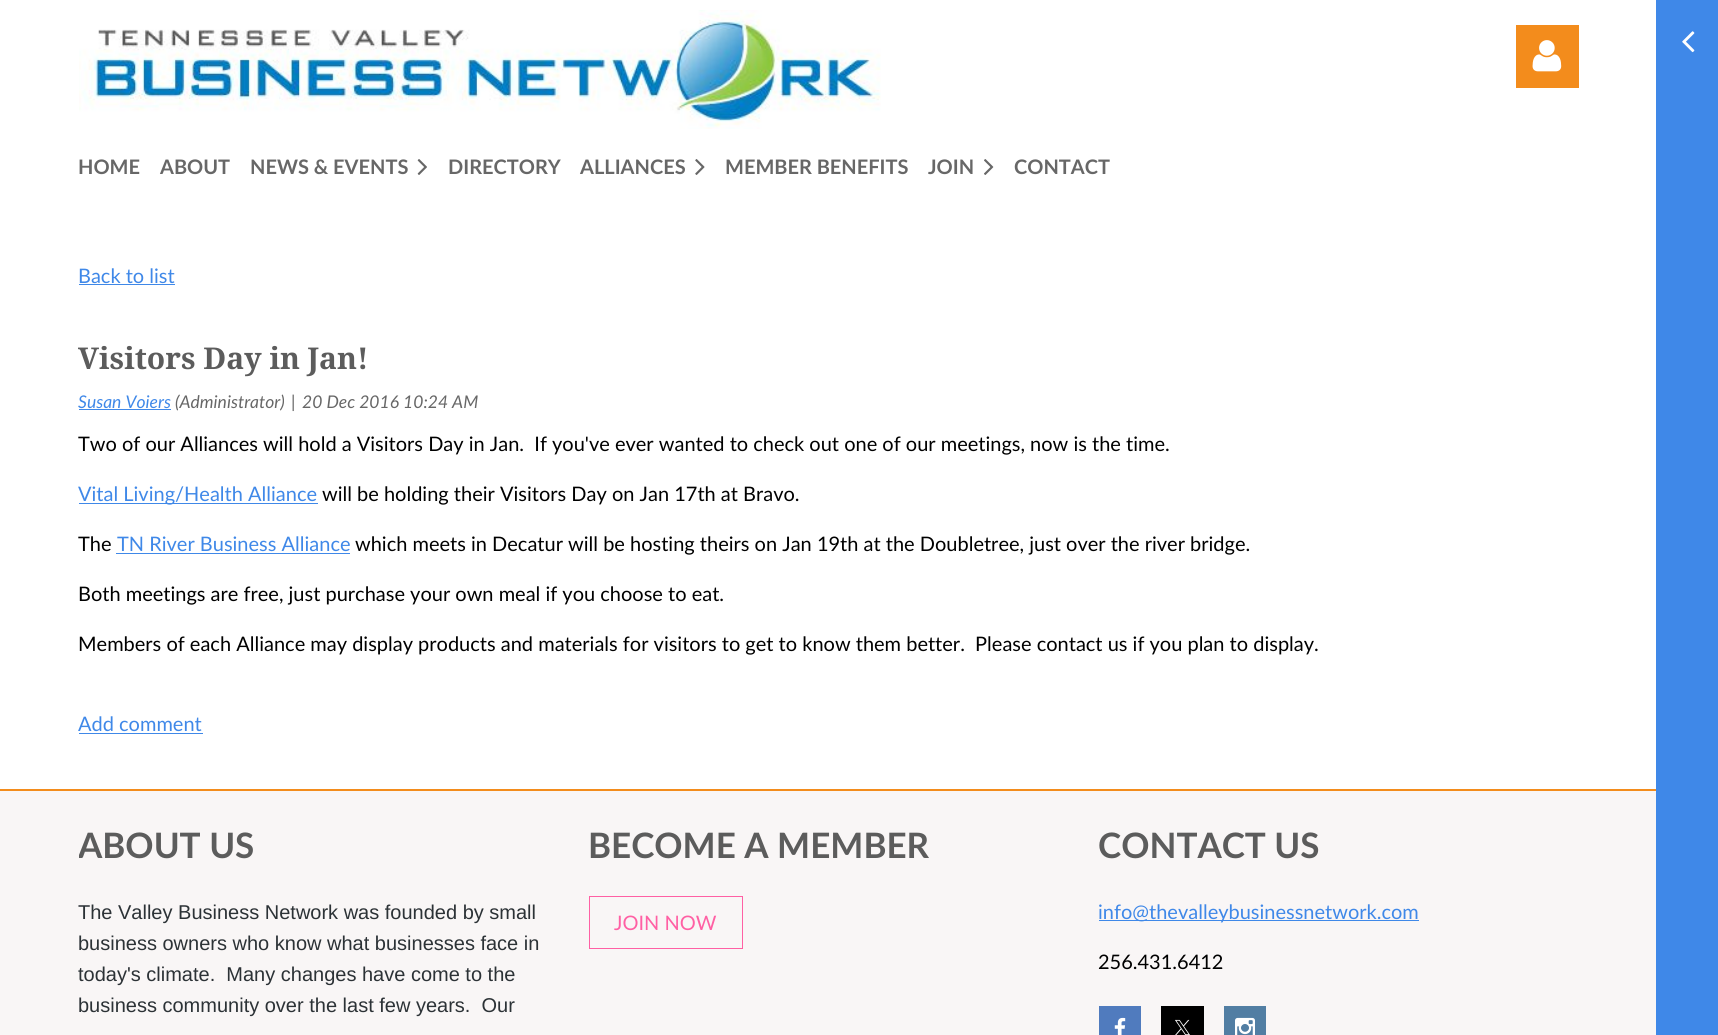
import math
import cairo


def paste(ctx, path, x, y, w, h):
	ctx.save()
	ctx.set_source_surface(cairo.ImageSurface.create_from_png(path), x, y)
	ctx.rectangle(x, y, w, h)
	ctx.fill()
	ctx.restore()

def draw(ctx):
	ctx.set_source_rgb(1, 1, 1)
	ctx.paint()
	paste(ctx, 'media/1.png', 79, 10, 802, 119)
	ctx.set_source_rgb(0.953, 0.549, 0.11)
	ctx.rectangle(1516, 25, 63, 63)
	ctx.fill()
	paste(ctx, 'media/2.png', 1532, 40, 30, 32)
	ctx.select_font_face('Lato', cairo.FONT_SLANT_NORMAL, cairo.FONT_WEIGHT_BOLD)
	ctx.set_font_size(20)
	ctx.set_source_rgb(0.404, 0.404, 0.404)
	for x, y, s in [
		(78, 174, 'HOME'),
		(160, 174, 'ABOUT'),
		(250, 174, 'NEWS & EVENTS'),
	]:
		ctx.move_to(x, y)
		ctx.show_text(s)
	paste(ctx, 'media/3.png', 417, 159, 10, 16)
	ctx.move_to(448, 174)
	ctx.show_text('DIRECTORY')
	ctx.move_to(580, 174)
	ctx.show_text('ALLIANCES')
	paste(ctx, 'media/4.png', 695, 159, 10, 16)
	ctx.move_to(725, 174)
	ctx.show_text('MEMBER BENEFITS')
	ctx.move_to(928, 174)
	ctx.show_text('JOIN')
	paste(ctx, 'media/5.png', 984, 159, 10, 16)
	ctx.move_to(1014, 174)
	ctx.show_text('CONTACT')
	ctx.select_font_face('Lato')
	ctx.set_source_rgb(0.247, 0.533, 0.91)
	ctx.move_to(78, 283)
	ctx.show_text('Back to list')
	ctx.rectangle(79, 284, 96, 1)
	ctx.fill()
	ctx.select_font_face('Droid Serif', cairo.FONT_SLANT_NORMAL, cairo.FONT_WEIGHT_BOLD)
	ctx.set_font_size(30)
	ctx.set_source_rgb(0.361, 0.361, 0.361)
	ctx.move_to(78, 369)
	ctx.show_text('Visitors Day in Jan!')
	ctx.select_font_face('Lato', cairo.FONT_SLANT_ITALIC)
	ctx.set_font_size(17.5)
	ctx.set_source_rgb(0.247, 0.533, 0.91)
	ctx.move_to(78, 408)
	ctx.show_text('Susan Voiers')
	ctx.rectangle(79, 409, 92, 1)
	ctx.fill()
	ctx.set_source_rgb(0.404, 0.404, 0.404)
	ctx.move_to(175, 408)
	ctx.show_text('(Administrator)')
	ctx.select_font_face('Lato')
	ctx.move_to(291, 408)
	ctx.show_text('|')
	ctx.select_font_face('Lato', cairo.FONT_SLANT_ITALIC)
	ctx.move_to(302, 408)
	ctx.show_text('20 Dec 2016 10:24 AM')
	ctx.select_font_face('Lato')
	ctx.set_font_size(20)
	ctx.set_source_rgb(0, 0, 0)
	ctx.move_to(78, 451)
	ctx.show_text('Two of our Alliances will hold a Visitors Day in Jan.  If you\'ve ever wanted to check out one of our meetings, now is the time.')
	ctx.set_source_rgb(0.247, 0.533, 0.91)
	ctx.rectangle(79, 503, 239, 1)
	ctx.fill()
	ctx.move_to(78, 501)
	ctx.show_text('Vital Living/Health Alliance')
	ctx.set_source_rgb(0, 0, 0)
	ctx.move_to(322, 501)
	ctx.show_text('will be holding their Visitors Day on Jan 17th at Bravo.')
	ctx.move_to(78, 551)
	ctx.show_text('The')
	ctx.set_source_rgb(0.247, 0.533, 0.91)
	ctx.move_to(117, 551)
	ctx.show_text('TN River Business Alliance')
	ctx.rectangle(116, 553, 234, 1)
	ctx.fill()
	ctx.set_source_rgb(0, 0, 0)
	for x, y, s in [
		(355, 551, 'which meets in Decatur will be hosting theirs on Jan 19th at the Doubletree, just over the river bridge.'),
		(78, 601, 'Both meetings are free, just purchase your own meal if you choose to eat.'),
		(78, 651, 'Members of each Alliance may display products and materials for visitors to get to know them better.  Please contact us if you plan to display.'),
	]:
		ctx.move_to(x, y)
		ctx.show_text(s)
	ctx.set_source_rgb(0.247, 0.533, 0.91)
	ctx.move_to(78, 731)
	ctx.show_text('Add comment')
	ctx.rectangle(79, 733, 124, 1)
	ctx.fill()
	ctx.set_source_rgb(0.953, 0.549, 0.11)
	ctx.rectangle(0, 789, 1656, 2)
	ctx.fill()
	ctx.set_source_rgb(0.976, 0.961, 0.961)
	ctx.rectangle(0, 791, 1656, 244)
	ctx.fill()
	ctx.save()
	ctx.rectangle(79, 821, 480, 75)
	ctx.clip()
	ctx.select_font_face('Lato', cairo.FONT_SLANT_NORMAL, cairo.FONT_WEIGHT_BOLD)
	ctx.set_font_size(35)
	ctx.set_source_rgb(0.361, 0.361, 0.361)
	ctx.move_to(78, 858)
	ctx.show_text('ABOUT US')
	ctx.restore()
	ctx.select_font_face('Liberation Sans')
	ctx.set_source_rgb(0.173, 0.196, 0.212)
	for x, y, s in [
		(78, 919, 'The Valley Business Network was founded by small'),
		(78, 950, 'business owners who know what businesses face in'),
		(78, 981, 'today\'s climate.  Many changes have come to the'),
		(78, 1012, 'business community over the last few years.  Our'),
	]:
		ctx.move_to(x, y)
		ctx.show_text(s)
	ctx.select_font_face('Lato', cairo.FONT_SLANT_NORMAL, cairo.FONT_WEIGHT_BOLD)
	ctx.set_font_size(35)
	ctx.set_source_rgb(0.361, 0.361, 0.361)
	ctx.move_to(588, 858)
	ctx.show_text('BECOME A MEMBER')
	ctx.rectangle(589.5, 896.5, 153, 52)
	ctx.set_source_rgb(1, 0.376, 0.643)
	ctx.set_line_width(1)
	ctx.stroke()
	ctx.select_font_face('Lato')
	ctx.set_font_size(20)
	ctx.move_to(614, 930)
	ctx.show_text('JOIN NOW')
	ctx.select_font_face('Lato', cairo.FONT_SLANT_NORMAL, cairo.FONT_WEIGHT_BOLD)
	ctx.set_font_size(35)
	ctx.set_source_rgb(0.361, 0.361, 0.361)
	ctx.move_to(1098, 858)
	ctx.show_text('CONTACT US')
	ctx.set_source_rgb(0.247, 0.533, 0.91)
	ctx.rectangle(1099, 920, 320, 1)
	ctx.fill()
	ctx.select_font_face('Lato')
	ctx.set_font_size(20)
	ctx.move_to(1098, 919)
	ctx.show_text('info@thevalleybusinessnetwork.com')
	ctx.set_source_rgb(0, 0, 0)
	ctx.move_to(1098, 969)
	ctx.show_text('256.431.6412')
	ctx.set_source_rgb(0.314, 0.482, 0.745)
	ctx.rectangle(1099, 1006, 42, 29)
	ctx.fill()
	paste(ctx, 'media/6.png', 1114, 1017, 12, 18)
	ctx.set_source_rgb(0, 0, 0)
	ctx.rectangle(1161, 1006, 43, 29)
	ctx.fill()
	paste(ctx, 'media/7.png', 1175, 1019, 15, 16)
	ctx.set_source_rgb(0.322, 0.494, 0.639)
	ctx.rectangle(1224, 1006, 42, 29)
	ctx.fill()
	paste(ctx, 'media/8.png', 1235, 1017, 20, 18)
	ctx.set_source_rgb(0.247, 0.533, 0.91)
	ctx.rectangle(1656, 0, 62, 1035)
	ctx.fill()
	paste(ctx, 'media/9.png', 1682, 31, 13, 22)


surface = cairo.ImageSurface(cairo.FORMAT_RGB24, 1718, 1035)
ctx = cairo.Context(surface)
options = cairo.FontOptions()
options.set_hint_metrics(cairo.HINT_METRICS_OFF)
options.set_hint_style(cairo.HINT_STYLE_NONE)
ctx.set_font_options(options)
ctx.set_miter_limit(4)
draw(ctx)
surface.write_to_png('image.png')
